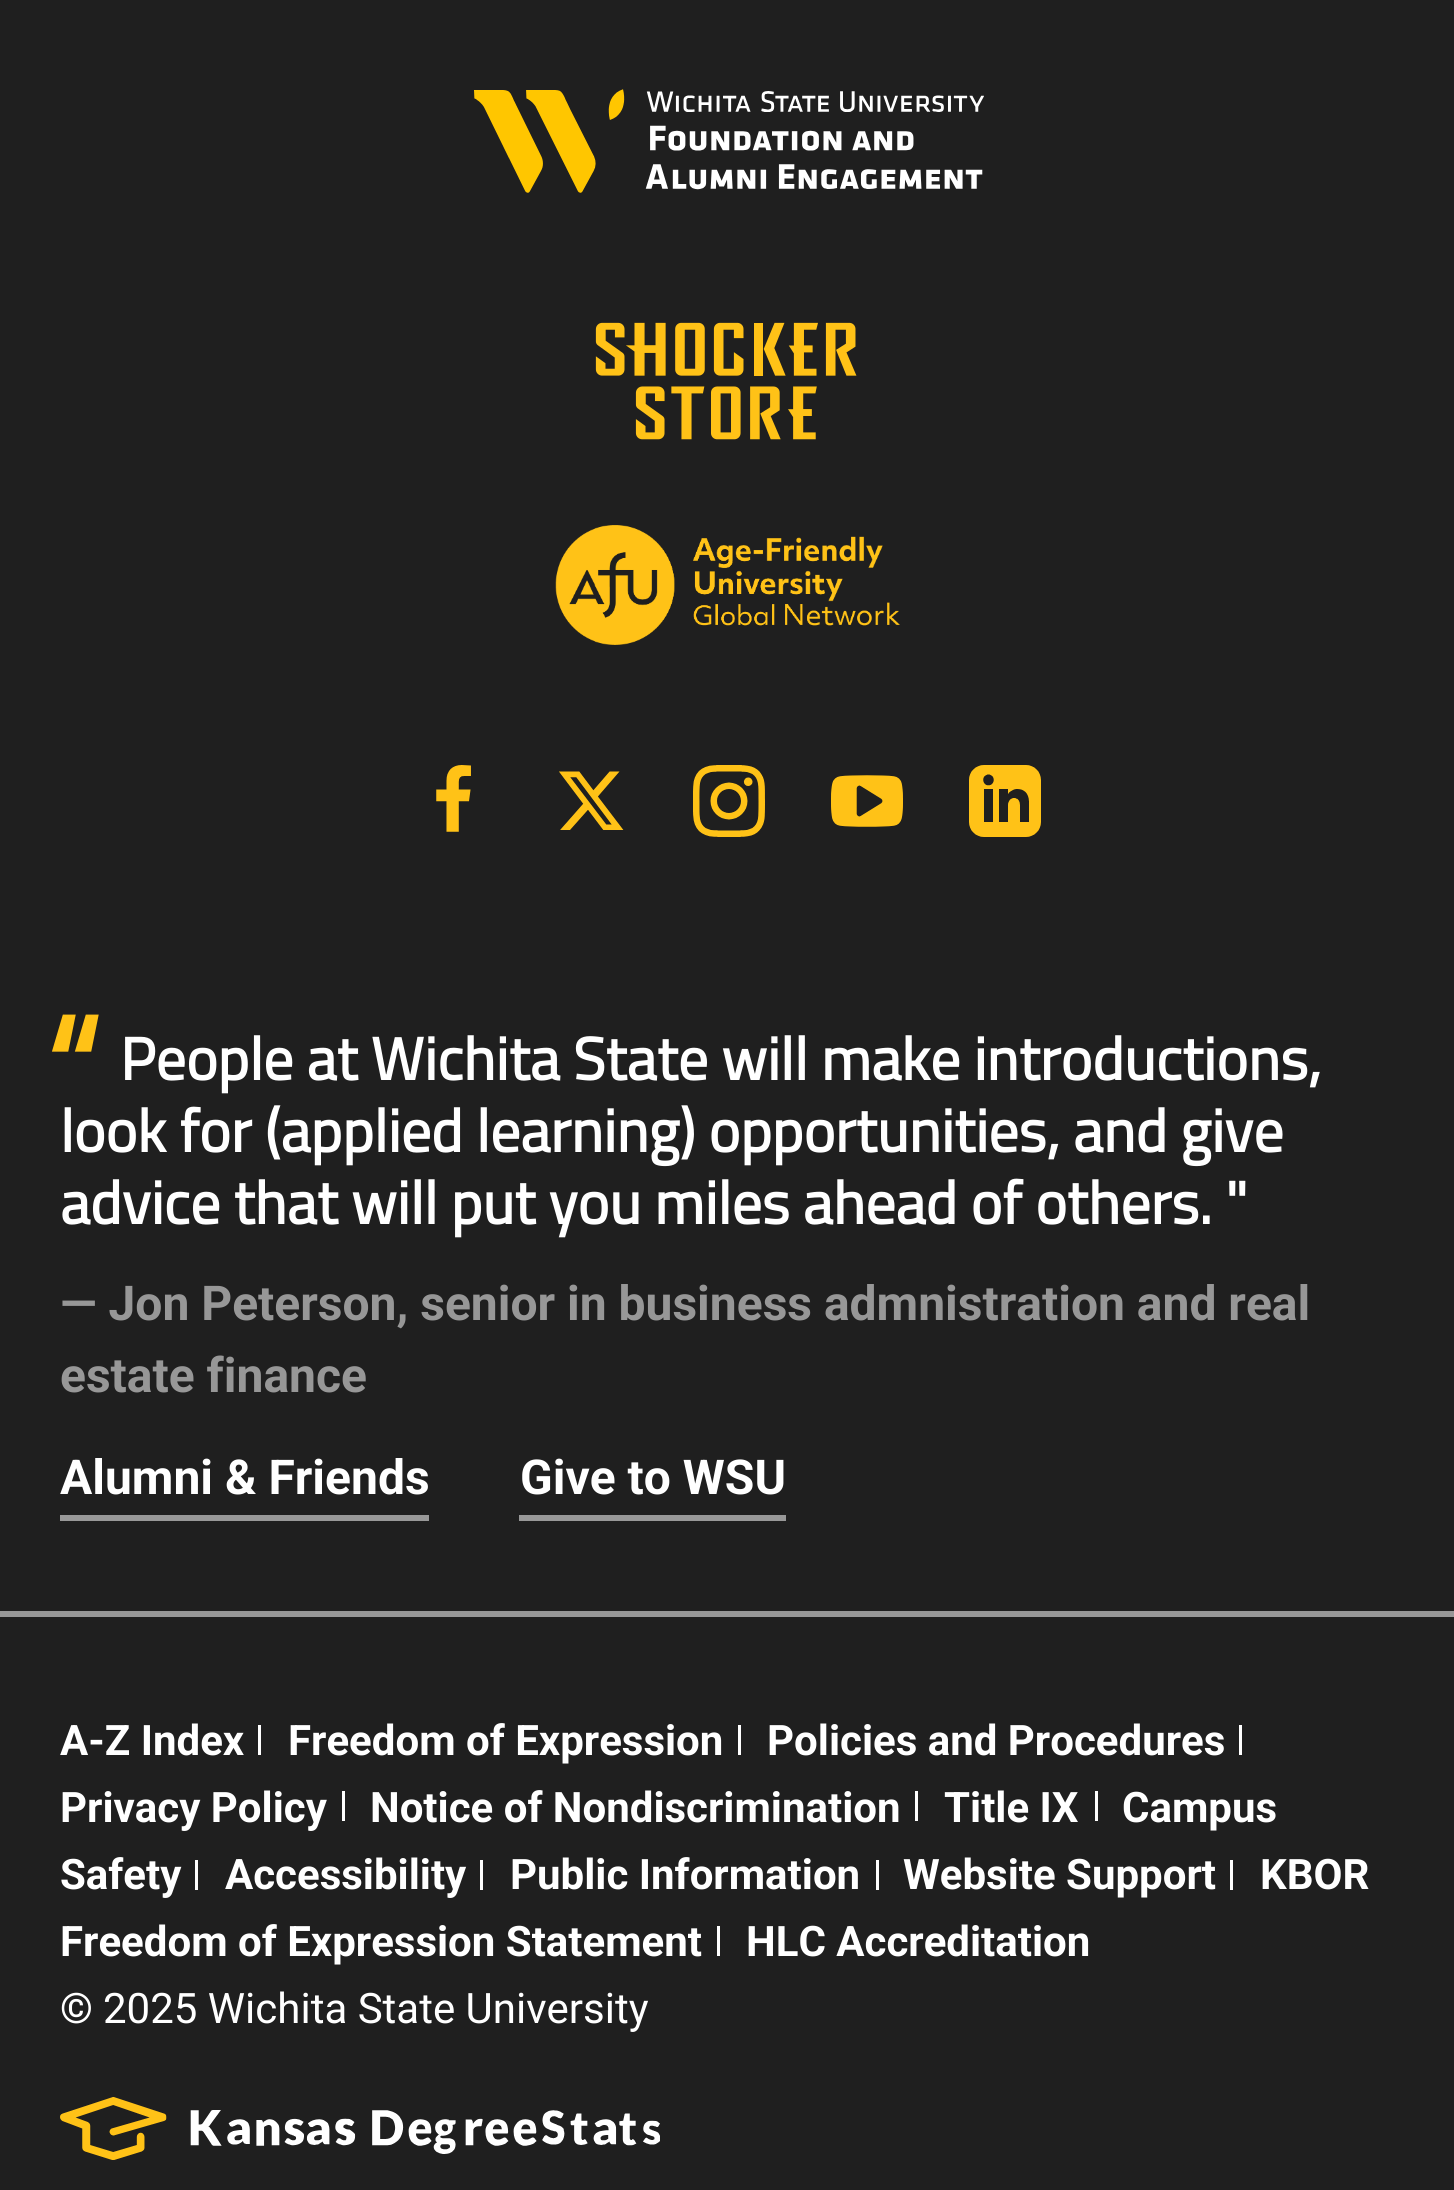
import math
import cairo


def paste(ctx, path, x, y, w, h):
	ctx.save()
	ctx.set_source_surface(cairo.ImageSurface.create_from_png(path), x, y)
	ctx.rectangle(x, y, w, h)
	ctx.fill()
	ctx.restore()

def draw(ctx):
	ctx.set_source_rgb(0.122, 0.122, 0.122)
	ctx.paint()
	paste(ctx, 'media/1.png', 474, 89, 510, 104)
	paste(ctx, 'media/2.png', 595, 322, 262, 118)
	paste(ctx, 'media/3.png', 555, 525, 345, 120)
	paste(ctx, 'media/4.png', 436, 765, 35, 67)
	paste(ctx, 'media/5.png', 559, 771, 65, 59)
	paste(ctx, 'media/6.png', 693, 765, 72, 72)
	paste(ctx, 'media/7.png', 831, 775, 72, 52)
	paste(ctx, 'media/8.png', 969, 765, 72, 72)
	ctx.select_font_face('Titillium Web', cairo.FONT_SLANT_NORMAL, cairo.FONT_WEIGHT_BOLD)
	ctx.set_font_size(150)
	ctx.set_source_rgb(1, 0.761, 0.09)
	ctx.move_to(45, 1125)
	ctx.show_text('“')
	ctx.set_font_size(60)
	ctx.set_source_rgb(1, 1, 1)
	for x, y, s in [
		(120, 1080, 'People at Wichita State will make introductions,'),
		(60, 1152, 'look for (applied learning) opportunities, and give'),
		(60, 1224, 'advice that will put you miles ahead of others. "'),
	]:
		ctx.move_to(x, y)
		ctx.show_text(s)
	ctx.select_font_face('Roboto', cairo.FONT_SLANT_NORMAL, cairo.FONT_WEIGHT_BOLD)
	ctx.set_font_size(48)
	ctx.set_source_rgb(0.592, 0.592, 0.592)
	ctx.move_to(60, 1320)
	ctx.show_text('— Jon Peterson, senior in business admnistration and real')
	ctx.move_to(60, 1392)
	ctx.show_text('estate finance')
	ctx.set_source_rgb(0.596, 0.596, 0.596)
	ctx.rectangle(60, 1515, 369, 6)
	ctx.fill()
	ctx.set_source_rgb(1, 1, 1)
	ctx.move_to(60, 1494)
	ctx.show_text('Alumni & Friends')
	ctx.set_source_rgb(0.596, 0.596, 0.596)
	ctx.rectangle(519, 1515, 267, 6)
	ctx.fill()
	ctx.set_source_rgb(1, 1, 1)
	ctx.move_to(520, 1494)
	ctx.show_text('Give to WSU')
	ctx.set_source_rgb(0.592, 0.592, 0.592)
	ctx.rectangle(0, 1611, 1454, 6)
	ctx.fill()
	ctx.set_font_size(42)
	ctx.set_source_rgb(1, 1, 1)
	ctx.move_to(60, 1755)
	ctx.show_text('A-Z Index')
	ctx.rectangle(258, 1725, 3, 30)
	ctx.fill()
	ctx.move_to(288, 1755)
	ctx.show_text('Freedom of Expression')
	ctx.rectangle(738, 1725, 3, 30)
	ctx.fill()
	ctx.move_to(767, 1755)
	ctx.show_text('Policies and Procedures')
	ctx.rectangle(1239, 1725, 3, 30)
	ctx.fill()
	ctx.move_to(60, 1822)
	ctx.show_text('Privacy Policy')
	ctx.rectangle(342, 1791, 3, 30)
	ctx.fill()
	ctx.move_to(370, 1822)
	ctx.show_text('Notice of Nondiscrimination')
	ctx.rectangle(915, 1791, 3, 30)
	ctx.fill()
	ctx.move_to(944, 1822)
	ctx.show_text('Title IX')
	ctx.rectangle(1095, 1791, 3, 30)
	ctx.fill()
	ctx.move_to(1122, 1822)
	ctx.show_text('Campus')
	ctx.move_to(60, 1889)
	ctx.show_text('Safety')
	ctx.rectangle(195, 1860, 3, 30)
	ctx.fill()
	ctx.move_to(225, 1889)
	ctx.show_text('Accessibility')
	ctx.rectangle(480, 1860, 3, 30)
	ctx.fill()
	ctx.move_to(510, 1889)
	ctx.show_text('Public Information')
	ctx.rectangle(876, 1860, 3, 30)
	ctx.fill()
	ctx.move_to(903, 1889)
	ctx.show_text('Website Support')
	ctx.rectangle(1230, 1860, 3, 30)
	ctx.fill()
	ctx.move_to(1260, 1889)
	ctx.show_text('KBOR')
	ctx.move_to(60, 1956)
	ctx.show_text('Freedom of Expression Statement')
	ctx.rectangle(717, 1926, 3, 30)
	ctx.fill()
	ctx.move_to(746, 1956)
	ctx.show_text('HLC Accreditation')
	ctx.move_to(60, 2023)
	ctx.show_text('©')
	ctx.select_font_face('Roboto')
	ctx.move_to(103, 2023)
	ctx.show_text('2025 Wichita State University')
	paste(ctx, 'media/9.png', 60, 2097, 600, 63)


surface = cairo.ImageSurface(cairo.FORMAT_RGB24, 1454, 2190)
ctx = cairo.Context(surface)
options = cairo.FontOptions()
options.set_hint_metrics(cairo.HINT_METRICS_OFF)
options.set_hint_style(cairo.HINT_STYLE_NONE)
ctx.set_font_options(options)
ctx.set_miter_limit(4)
draw(ctx)
surface.write_to_png('image.png')
